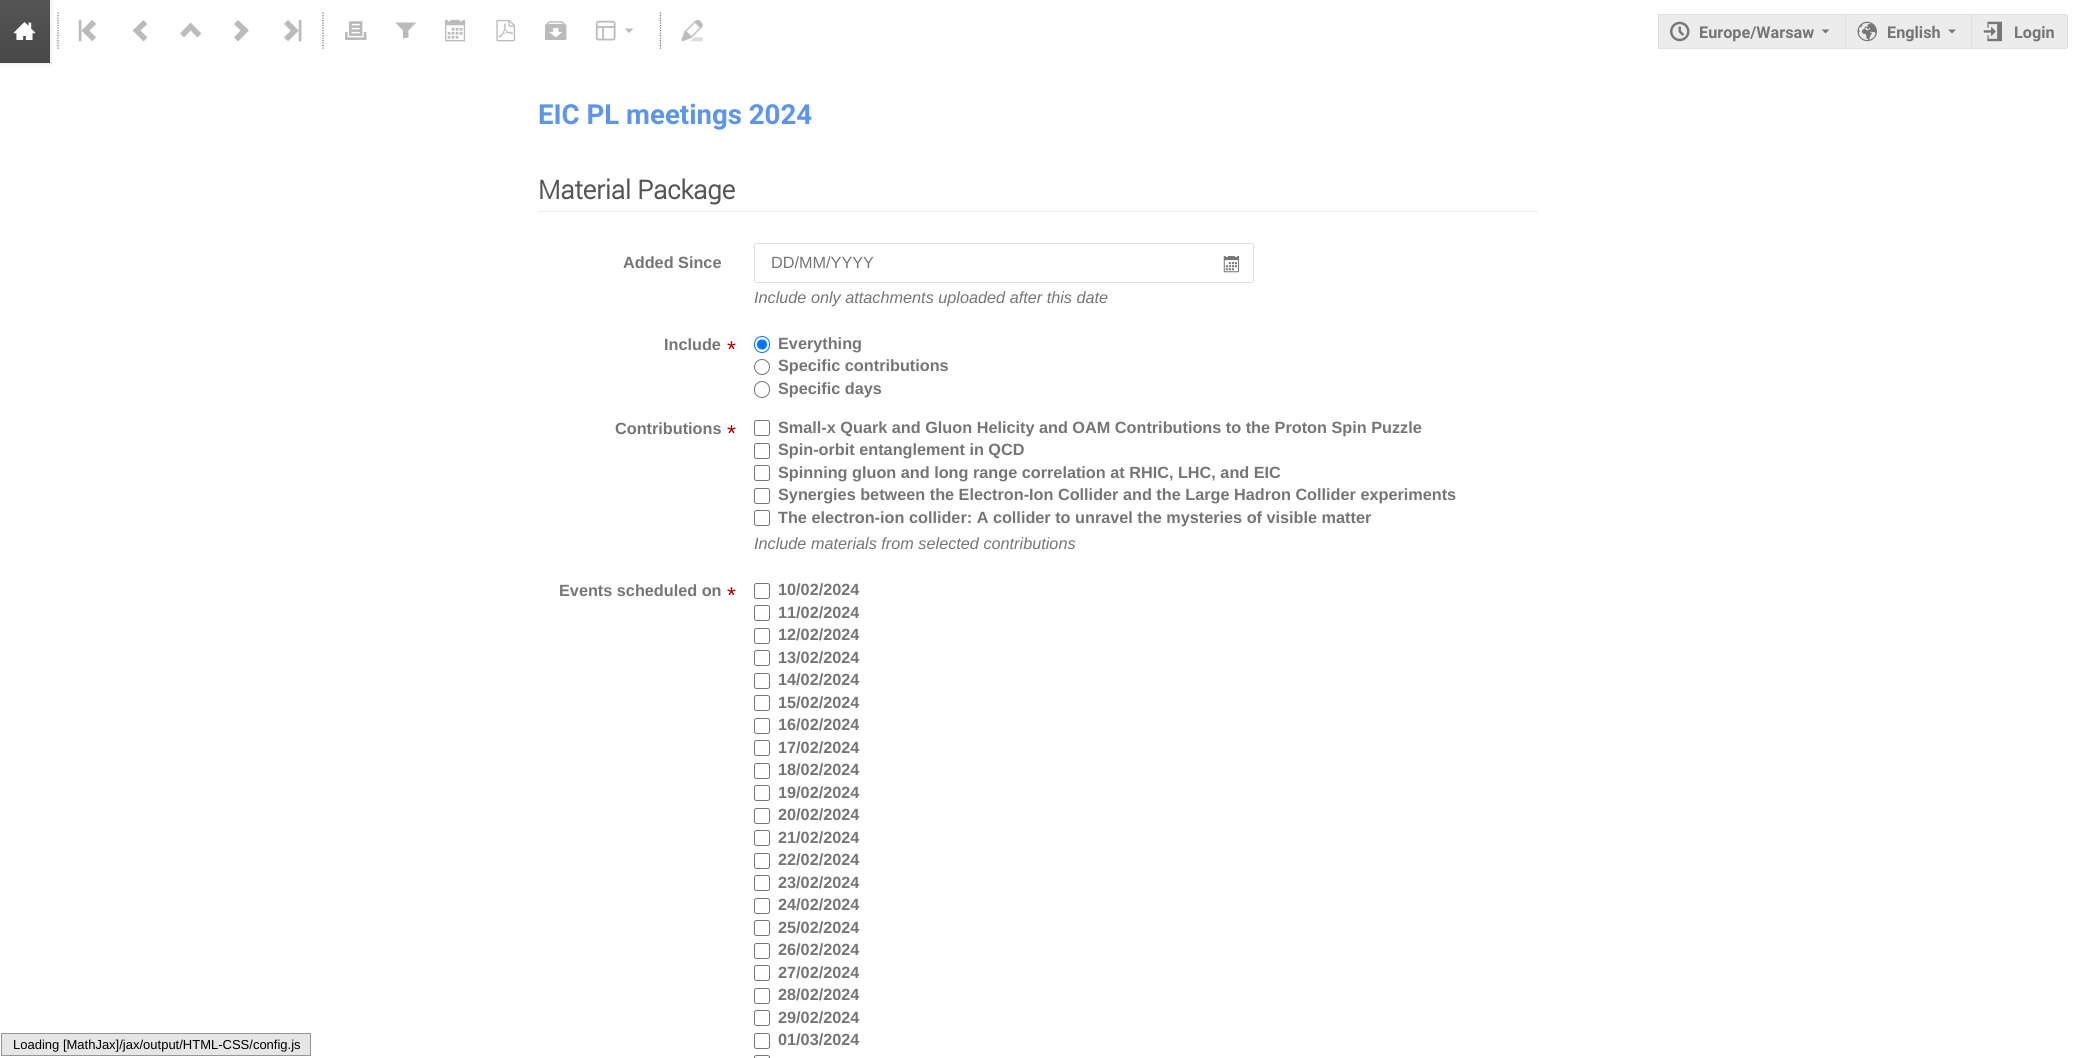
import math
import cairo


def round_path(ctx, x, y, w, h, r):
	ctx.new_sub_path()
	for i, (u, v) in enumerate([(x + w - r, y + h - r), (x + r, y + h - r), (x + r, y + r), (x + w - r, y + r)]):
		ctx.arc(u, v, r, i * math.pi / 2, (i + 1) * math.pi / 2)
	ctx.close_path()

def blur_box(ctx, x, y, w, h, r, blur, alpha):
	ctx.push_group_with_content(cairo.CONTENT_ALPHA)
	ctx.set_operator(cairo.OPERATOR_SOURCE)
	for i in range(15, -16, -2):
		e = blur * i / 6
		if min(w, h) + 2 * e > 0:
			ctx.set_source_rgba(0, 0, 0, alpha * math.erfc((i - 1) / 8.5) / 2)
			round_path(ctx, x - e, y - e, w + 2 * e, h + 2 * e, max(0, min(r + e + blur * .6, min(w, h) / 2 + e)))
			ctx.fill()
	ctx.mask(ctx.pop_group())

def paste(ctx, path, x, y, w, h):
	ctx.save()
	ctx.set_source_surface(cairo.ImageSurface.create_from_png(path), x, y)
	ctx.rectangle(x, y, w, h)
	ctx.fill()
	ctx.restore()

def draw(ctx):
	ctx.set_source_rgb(1, 1, 1)
	ctx.paint()
	ctx.set_source_rgb(0.078, 0.078, 0.078)
	blur_box(ctx, 1, 1, 50, 63, 0, 2.5, 0.1)
	gradient = cairo.LinearGradient(25, 0, 25, 63)
	gradient.add_color_stop_rgba(0, 0.333, 0.333, 0.333, 1)
	gradient.add_color_stop_rgba(1, 0.282, 0.282, 0.282, 1)
	ctx.set_source(gradient)
	ctx.rectangle(0, 0, 50, 63)
	ctx.fill()
	paste(ctx, 'media/1.png', 13, 22, 23, 18)
	ctx.new_path()
	ctx.move_to(58, 12.5)
	ctx.line_to(58, 50)
	ctx.set_source_rgb(0.467, 0.467, 0.467)
	ctx.set_line_width(1.2)
	ctx.set_dash([1.25, 1.25])
	ctx.stroke()
	paste(ctx, 'media/2.png', 78, 19, 18, 23)
	ctx.set_source_rgb(0.733, 0.733, 0.733)
	ctx.new_path()
	ctx.move_to(143.5, 41.5)
	ctx.line_to(147.5, 37.5)
	ctx.line_to(140.5, 30.5)
	ctx.line_to(147.5, 24)
	ctx.line_to(143.5, 20)
	ctx.line_to(132.5, 30.5)
	ctx.close_path()
	ctx.fill()
	ctx.new_path()
	ctx.move_to(180, 33.5)
	ctx.line_to(184, 37.5)
	ctx.line_to(190.5, 30.5)
	ctx.line_to(197.5, 37.5)
	ctx.line_to(201.5, 33.5)
	ctx.line_to(190.5, 22.5)
	ctx.close_path()
	ctx.fill()
	ctx.new_path()
	ctx.move_to(238, 20)
	ctx.line_to(234, 24)
	ctx.line_to(240.5, 30.5)
	ctx.line_to(234, 37.5)
	ctx.line_to(238, 41.5)
	ctx.line_to(249, 30.5)
	ctx.close_path()
	ctx.fill()
	paste(ctx, 'media/3.png', 284, 19, 18, 23)
	ctx.new_path()
	ctx.move_to(323, 12.5)
	ctx.line_to(323, 50)
	ctx.set_source_rgb(0.467, 0.467, 0.467)
	ctx.stroke()
	paste(ctx, 'media/4.png', 345, 21, 22, 19)
	ctx.set_source_rgb(0.733, 0.733, 0.733)
	ctx.new_path()
	ctx.move_to(395, 22.5)
	ctx.line_to(403, 30.5)
	ctx.line_to(403, 38.5)
	ctx.line_to(408.5, 37.5)
	ctx.line_to(408.5, 30.5)
	ctx.line_to(416.5, 22.5)
	ctx.close_path()
	ctx.fill()
	paste(ctx, 'media/5.png', 445, 19, 21, 23)
	paste(ctx, 'media/6.png', 496, 19, 20, 23)
	paste(ctx, 'media/7.png', 545, 21, 22, 19)
	paste(ctx, 'media/8.png', 595, 20, 21, 21)
	ctx.new_path()
	ctx.move_to(624.5, 28.5)
	ctx.line_to(629, 33)
	ctx.line_to(633.5, 28.5)
	ctx.close_path()
	ctx.fill()
	ctx.new_path()
	ctx.move_to(660.5, 12.5)
	ctx.line_to(660.5, 50)
	ctx.set_source_rgb(0.467, 0.467, 0.467)
	ctx.stroke()
	paste(ctx, 'media/9.png', 681, 19, 22, 23)
	ctx.set_source_rgb(0.925, 0.925, 0.925)
	ctx.rectangle(1659, 15, 186, 33)
	ctx.fill()
	ctx.set_source_rgb(0.875, 0.875, 0.875)
	ctx.rectangle(1658, 14, 313, 1)
	ctx.rectangle(1658, 48, 313, 1)
	ctx.rectangle(1658, 14, 1, 35)
	ctx.fill()
	paste(ctx, 'media/10.png', 1670, 21, 20, 21)
	ctx.select_font_face('Roboto', cairo.FONT_SLANT_NORMAL, cairo.FONT_WEIGHT_BOLD)
	ctx.set_font_size(16.25)
	ctx.set_source_rgb(0.459, 0.459, 0.459)
	ctx.move_to(1699, 38)
	ctx.show_text('Europe/Warsaw')
	ctx.set_source_rgb(0.467, 0.467, 0.467)
	ctx.new_path()
	ctx.move_to(1821.5, 29.5)
	ctx.line_to(1825.5, 33.5)
	ctx.line_to(1829.5, 29.5)
	ctx.close_path()
	ctx.fill()
	ctx.set_source_rgb(0.925, 0.925, 0.925)
	ctx.rectangle(1846, 15, 125, 33)
	ctx.fill()
	ctx.set_source_rgb(0.875, 0.875, 0.875)
	ctx.rectangle(1845, 14, 1, 35)
	ctx.fill()
	paste(ctx, 'media/11.png', 1857, 21, 20, 21)
	ctx.set_source_rgb(0.459, 0.459, 0.459)
	ctx.move_to(1887, 38)
	ctx.show_text('English')
	ctx.set_source_rgb(0.467, 0.467, 0.467)
	ctx.new_path()
	ctx.move_to(1948, 29.5)
	ctx.line_to(1952, 33.5)
	ctx.line_to(1956, 29.5)
	ctx.close_path()
	ctx.fill()
	ctx.set_source_rgb(0.925, 0.925, 0.925)
	ctx.new_path()
	ctx.move_to(1971.5, 14.5)
	ctx.line_to(2065.5, 14.5)
	ctx.curve_to(2066.5, 14.5, 2067.5, 15.5, 2067.5, 16.5)
	ctx.line_to(2067.5, 46.5)
	ctx.curve_to(2067.5, 47.5, 2066.5, 48.5, 2065.5, 48.5)
	ctx.line_to(1971.5, 48.5)
	ctx.close_path()
	ctx.fill_preserve()
	ctx.set_source_rgb(0.875, 0.875, 0.875)
	ctx.set_line_width(1)
	ctx.set_dash([])
	ctx.stroke()
	paste(ctx, 'media/12.png', 1983, 21, 19, 21)
	ctx.set_source_rgb(0.459, 0.459, 0.459)
	ctx.move_to(2014, 38)
	ctx.show_text('Login')
	ctx.set_source_rgb(0.902, 0.902, 0.902)
	ctx.rectangle(1.5, 1033.5, 309, 22)
	ctx.fill_preserve()
	ctx.set_source_rgb(0.584, 0.584, 0.584)
	ctx.stroke()
	ctx.select_font_face('Liberation Sans')
	ctx.set_font_size(13)
	ctx.set_source_rgb(0, 0, 0)
	ctx.move_to(13, 1049)
	ctx.show_text('Loading [MathJax]/jax/output/HTML-CSS/config.js')
	ctx.select_font_face('Roboto', cairo.FONT_SLANT_NORMAL, cairo.FONT_WEIGHT_BOLD)
	ctx.set_font_size(27.6)
	ctx.set_source_rgb(0.365, 0.584, 0.918)
	ctx.move_to(538, 124)
	ctx.show_text('EIC PL meetings 2024')
	ctx.set_source_rgb(0.922, 0.922, 0.922)
	ctx.rectangle(538, 211, 1000, 1)
	ctx.fill()
	ctx.select_font_face('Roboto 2', cairo.FONT_SLANT_NORMAL, cairo.FONT_WEIGHT_BOLD)
	ctx.set_font_size(26)
	ctx.set_source_rgb(0.333, 0.333, 0.333)
	ctx.move_to(538, 199)
	ctx.show_text('Material Package')
	ctx.select_font_face('Liberation Sans', cairo.FONT_SLANT_NORMAL, cairo.FONT_WEIGHT_BOLD)
	ctx.set_font_size(16.25)
	ctx.set_source_rgb(0.459, 0.459, 0.459)
	ctx.move_to(623, 268)
	ctx.show_text('Added Since')
	round_path(ctx, 754.5, 243.5, 499, 39, 2)
	ctx.set_source_rgb(0.875, 0.875, 0.875)
	ctx.stroke()
	ctx.select_font_face('Liberation Sans')
	ctx.set_source_rgb(0.459, 0.459, 0.459)
	ctx.move_to(771, 268)
	ctx.show_text('DD/MM/YYYY')
	paste(ctx, 'media/13.png', 1223, 256, 16, 17)
	ctx.select_font_face('Liberation Sans', cairo.FONT_SLANT_ITALIC)
	ctx.move_to(754, 303)
	ctx.show_text('Include only attachments uploaded after this date')
	ctx.select_font_face('Liberation Sans', cairo.FONT_SLANT_NORMAL, cairo.FONT_WEIGHT_BOLD)
	ctx.move_to(664, 350)
	ctx.show_text('Include')
	ctx.select_font_face('Liberation Sans', cairo.FONT_SLANT_ITALIC)
	ctx.set_font_size(23)
	ctx.set_source_rgb(0.686, 0, 0)
	ctx.move_to(726, 357)
	ctx.show_text('*')
	round_path(ctx, 754.5, 336.5, 15, 16, 7.5)
	ctx.set_source_rgb(0, 0.459, 1)
	ctx.stroke()
	ctx.arc(762, 344.5, 5, 0, 2 * math.pi)
	ctx.fill()
	ctx.select_font_face('Liberation Sans', cairo.FONT_SLANT_NORMAL, cairo.FONT_WEIGHT_BOLD)
	ctx.set_font_size(16.25)
	ctx.set_source_rgb(0.459, 0.459, 0.459)
	ctx.move_to(778, 349)
	ctx.show_text('Everything')
	ctx.new_path()
	ctx.arc(762, 367, 7.5, 0, 2 * math.pi)
	ctx.set_source_rgb(0.463, 0.463, 0.463)
	ctx.stroke()
	ctx.set_source_rgb(0.459, 0.459, 0.459)
	ctx.move_to(778, 371)
	ctx.show_text('Specific contributions')
	round_path(ctx, 754.5, 381.5, 15, 16, 7.5)
	ctx.set_source_rgb(0.463, 0.463, 0.463)
	ctx.stroke()
	ctx.set_source_rgb(0.459, 0.459, 0.459)
	ctx.move_to(778, 394)
	ctx.show_text('Specific days')
	ctx.move_to(615, 434)
	ctx.show_text('Contributions')
	ctx.select_font_face('Liberation Sans', cairo.FONT_SLANT_ITALIC)
	ctx.set_font_size(23)
	ctx.set_source_rgb(0.686, 0, 0)
	ctx.move_to(726, 441)
	ctx.show_text('*')
	round_path(ctx, 754.5, 420.5, 15, 15, 2)
	ctx.set_source_rgb(0.463, 0.463, 0.463)
	ctx.stroke()
	ctx.select_font_face('Liberation Sans', cairo.FONT_SLANT_NORMAL, cairo.FONT_WEIGHT_BOLD)
	ctx.set_font_size(16.25)
	ctx.set_source_rgb(0.459, 0.459, 0.459)
	ctx.move_to(778, 433)
	ctx.show_text('Small-x Quark and Gluon Helicity and OAM Contributions to the Proton Spin Puzzle')
	round_path(ctx, 754.5, 443.5, 15, 15, 2)
	ctx.set_source_rgb(0.463, 0.463, 0.463)
	ctx.stroke()
	ctx.set_source_rgb(0.459, 0.459, 0.459)
	ctx.move_to(778, 455)
	ctx.show_text('Spin-orbit entanglement in QCD')
	round_path(ctx, 754.5, 465.5, 15, 15, 2)
	ctx.set_source_rgb(0.463, 0.463, 0.463)
	ctx.stroke()
	ctx.set_source_rgb(0.459, 0.459, 0.459)
	ctx.move_to(778, 478)
	ctx.show_text('Spinning gluon and long range correlation at RHIC, LHC, and EIC')
	round_path(ctx, 754.5, 488.5, 15, 15, 2)
	ctx.set_source_rgb(0.463, 0.463, 0.463)
	ctx.stroke()
	ctx.set_source_rgb(0.459, 0.459, 0.459)
	ctx.move_to(778, 500)
	ctx.show_text('Synergies between the Electron-Ion Collider and the Large Hadron Collider experiments')
	round_path(ctx, 754.5, 510.5, 15, 15, 2)
	ctx.set_source_rgb(0.463, 0.463, 0.463)
	ctx.stroke()
	ctx.set_source_rgb(0.459, 0.459, 0.459)
	ctx.move_to(778, 523)
	ctx.show_text('The electron-ion collider: A collider to unravel the mysteries of visible matter')
	ctx.select_font_face('Liberation Sans', cairo.FONT_SLANT_ITALIC)
	ctx.move_to(754, 549)
	ctx.show_text('Include materials from selected contributions')
	ctx.select_font_face('Liberation Sans', cairo.FONT_SLANT_NORMAL, cairo.FONT_WEIGHT_BOLD)
	ctx.move_to(559, 596)
	ctx.show_text('Events scheduled on')
	ctx.select_font_face('Liberation Sans', cairo.FONT_SLANT_ITALIC)
	ctx.set_font_size(23)
	ctx.set_source_rgb(0.686, 0, 0)
	ctx.move_to(726, 603)
	ctx.show_text('*')
	round_path(ctx, 754.5, 583.5, 15, 15, 2)
	ctx.set_source_rgb(0.463, 0.463, 0.463)
	ctx.stroke()
	ctx.select_font_face('Liberation Sans', cairo.FONT_SLANT_NORMAL, cairo.FONT_WEIGHT_BOLD)
	ctx.set_font_size(16.25)
	ctx.set_source_rgb(0.459, 0.459, 0.459)
	ctx.move_to(778, 595)
	ctx.show_text('10/02/2024')
	round_path(ctx, 754.5, 605.5, 15, 15, 2)
	ctx.set_source_rgb(0.463, 0.463, 0.463)
	ctx.stroke()
	ctx.set_source_rgb(0.459, 0.459, 0.459)
	ctx.move_to(778, 618)
	ctx.show_text('11/02/2024')
	round_path(ctx, 754.5, 628.5, 15, 15, 2)
	ctx.set_source_rgb(0.463, 0.463, 0.463)
	ctx.stroke()
	ctx.set_source_rgb(0.459, 0.459, 0.459)
	ctx.move_to(778, 640)
	ctx.show_text('12/02/2024')
	round_path(ctx, 754.5, 650.5, 15, 15, 2)
	ctx.set_source_rgb(0.463, 0.463, 0.463)
	ctx.stroke()
	ctx.set_source_rgb(0.459, 0.459, 0.459)
	ctx.move_to(778, 663)
	ctx.show_text('13/02/2024')
	round_path(ctx, 754.5, 673.5, 15, 15, 2)
	ctx.set_source_rgb(0.463, 0.463, 0.463)
	ctx.stroke()
	ctx.set_source_rgb(0.459, 0.459, 0.459)
	ctx.move_to(778, 685)
	ctx.show_text('14/02/2024')
	round_path(ctx, 754.5, 695.5, 15, 15, 2)
	ctx.set_source_rgb(0.463, 0.463, 0.463)
	ctx.stroke()
	ctx.set_source_rgb(0.459, 0.459, 0.459)
	ctx.move_to(778, 708)
	ctx.show_text('15/02/2024')
	round_path(ctx, 754.5, 718.5, 15, 15, 2)
	ctx.set_source_rgb(0.463, 0.463, 0.463)
	ctx.stroke()
	ctx.set_source_rgb(0.459, 0.459, 0.459)
	ctx.move_to(778, 730)
	ctx.show_text('16/02/2024')
	round_path(ctx, 754.5, 740.5, 15, 15, 2)
	ctx.set_source_rgb(0.463, 0.463, 0.463)
	ctx.stroke()
	ctx.set_source_rgb(0.459, 0.459, 0.459)
	ctx.move_to(778, 753)
	ctx.show_text('17/02/2024')
	round_path(ctx, 754.5, 763.5, 15, 15, 2)
	ctx.set_source_rgb(0.463, 0.463, 0.463)
	ctx.stroke()
	ctx.set_source_rgb(0.459, 0.459, 0.459)
	ctx.move_to(778, 775)
	ctx.show_text('18/02/2024')
	round_path(ctx, 754.5, 785.5, 15, 15, 2)
	ctx.set_source_rgb(0.463, 0.463, 0.463)
	ctx.stroke()
	ctx.set_source_rgb(0.459, 0.459, 0.459)
	ctx.move_to(778, 798)
	ctx.show_text('19/02/2024')
	round_path(ctx, 754.5, 808.5, 15, 15, 2)
	ctx.set_source_rgb(0.463, 0.463, 0.463)
	ctx.stroke()
	ctx.set_source_rgb(0.459, 0.459, 0.459)
	ctx.move_to(778, 820)
	ctx.show_text('20/02/2024')
	round_path(ctx, 754.5, 830.5, 15, 15, 2)
	ctx.set_source_rgb(0.463, 0.463, 0.463)
	ctx.stroke()
	ctx.set_source_rgb(0.459, 0.459, 0.459)
	ctx.move_to(778, 843)
	ctx.show_text('21/02/2024')
	round_path(ctx, 754.5, 853.5, 15, 15, 2)
	ctx.set_source_rgb(0.463, 0.463, 0.463)
	ctx.stroke()
	ctx.set_source_rgb(0.459, 0.459, 0.459)
	ctx.move_to(778, 865)
	ctx.show_text('22/02/2024')
	round_path(ctx, 754.5, 875.5, 15, 15, 2)
	ctx.set_source_rgb(0.463, 0.463, 0.463)
	ctx.stroke()
	ctx.set_source_rgb(0.459, 0.459, 0.459)
	ctx.move_to(778, 888)
	ctx.show_text('23/02/2024')
	round_path(ctx, 754.5, 898.5, 15, 15, 2)
	ctx.set_source_rgb(0.463, 0.463, 0.463)
	ctx.stroke()
	ctx.set_source_rgb(0.459, 0.459, 0.459)
	ctx.move_to(778, 910)
	ctx.show_text('24/02/2024')
	round_path(ctx, 754.5, 920.5, 15, 15, 2)
	ctx.set_source_rgb(0.463, 0.463, 0.463)
	ctx.stroke()
	ctx.set_source_rgb(0.459, 0.459, 0.459)
	ctx.move_to(778, 933)
	ctx.show_text('25/02/2024')
	round_path(ctx, 754.5, 943.5, 15, 15, 2)
	ctx.set_source_rgb(0.463, 0.463, 0.463)
	ctx.stroke()
	ctx.set_source_rgb(0.459, 0.459, 0.459)
	ctx.move_to(778, 955)
	ctx.show_text('26/02/2024')
	round_path(ctx, 754.5, 965.5, 15, 15, 2)
	ctx.set_source_rgb(0.463, 0.463, 0.463)
	ctx.stroke()
	ctx.set_source_rgb(0.459, 0.459, 0.459)
	ctx.move_to(778, 978)
	ctx.show_text('27/02/2024')
	round_path(ctx, 754.5, 988.5, 15, 15, 2)
	ctx.set_source_rgb(0.463, 0.463, 0.463)
	ctx.stroke()
	ctx.set_source_rgb(0.459, 0.459, 0.459)
	ctx.move_to(778, 1000)
	ctx.show_text('28/02/2024')
	round_path(ctx, 754.5, 1010.5, 15, 15, 2)
	ctx.set_source_rgb(0.463, 0.463, 0.463)
	ctx.stroke()
	ctx.set_source_rgb(0.459, 0.459, 0.459)
	ctx.move_to(778, 1023)
	ctx.show_text('29/02/2024')
	round_path(ctx, 754.5, 1033.5, 15, 15, 2)
	ctx.set_source_rgb(0.463, 0.463, 0.463)
	ctx.stroke()
	ctx.set_source_rgb(0.459, 0.459, 0.459)
	ctx.move_to(778, 1045)
	ctx.show_text('01/03/2024')
	round_path(ctx, 754.5, 1055.5, 15, 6, 2)
	ctx.set_source_rgb(0.463, 0.463, 0.463)
	ctx.stroke()


surface = cairo.ImageSurface(cairo.FORMAT_RGB24, 2075, 1058)
ctx = cairo.Context(surface)
options = cairo.FontOptions()
options.set_hint_metrics(cairo.HINT_METRICS_OFF)
options.set_hint_style(cairo.HINT_STYLE_NONE)
ctx.set_font_options(options)
ctx.set_miter_limit(4)
draw(ctx)
surface.write_to_png('image.png')
